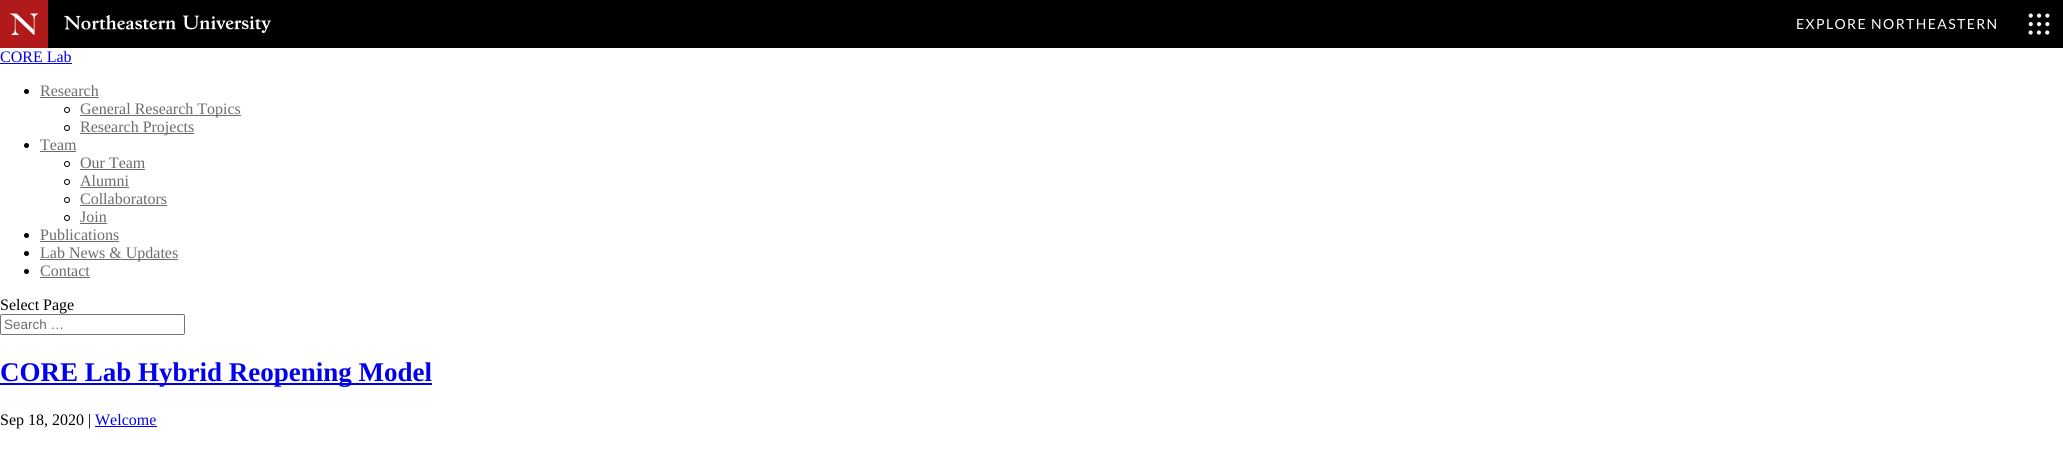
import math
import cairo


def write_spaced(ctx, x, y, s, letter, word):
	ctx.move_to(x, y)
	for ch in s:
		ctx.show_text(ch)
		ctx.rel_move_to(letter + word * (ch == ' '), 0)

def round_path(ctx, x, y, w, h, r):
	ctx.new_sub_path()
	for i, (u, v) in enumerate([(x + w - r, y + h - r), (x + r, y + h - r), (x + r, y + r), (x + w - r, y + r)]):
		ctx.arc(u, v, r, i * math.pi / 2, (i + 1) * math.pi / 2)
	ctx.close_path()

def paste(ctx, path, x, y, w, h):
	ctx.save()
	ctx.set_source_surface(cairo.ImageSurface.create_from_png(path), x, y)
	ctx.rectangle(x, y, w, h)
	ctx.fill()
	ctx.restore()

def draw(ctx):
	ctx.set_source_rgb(1, 1, 1)
	ctx.paint()
	ctx.set_source_rgb(0, 0, 0)
	ctx.rectangle(48, 0, 2015, 48)
	ctx.fill()
	ctx.set_source_rgb(0.69, 0.102, 0.106)
	ctx.rectangle(0, 0, 48, 48)
	ctx.fill()
	paste(ctx, 'media/1.png', 10, 13, 28, 22)
	paste(ctx, 'media/2.png', 64, 15, 207, 18)
	ctx.select_font_face('Lato')
	ctx.set_font_size(14)
	ctx.set_source_rgb(1, 1, 1)
	write_spaced(ctx, 1796, 29, 'EXPLORE NORTHEASTERN', 1.4, 0)
	paste(ctx, 'media/3.png', 2028, 13, 22, 22)
	ctx.select_font_face('Liberation Serif')
	ctx.set_font_size(16)
	ctx.set_source_rgb(0, 0, 0.933)
	ctx.move_to(0, 62)
	ctx.show_text('CORE Lab')
	ctx.rectangle(0, 63, 72, 1)
	ctx.fill()
	ctx.set_source_rgb(0, 0, 0)
	ctx.arc(26.5, 91.5, 2.5, 0, 2 * math.pi)
	ctx.fill()
	ctx.set_source_rgb(0.424, 0.424, 0.424)
	ctx.move_to(40, 96)
	ctx.show_text('Research')
	ctx.rectangle(40, 97, 59, 1)
	ctx.fill()
	ctx.arc(67, 110, 2.5, 0, 2 * math.pi)
	ctx.set_source_rgb(0, 0, 0)
	ctx.set_line_width(1)
	ctx.stroke()
	ctx.set_source_rgb(0.424, 0.424, 0.424)
	ctx.rectangle(80, 115, 161, 1)
	ctx.fill()
	ctx.move_to(80, 114)
	ctx.show_text('General Research Topics')
	ctx.new_path()
	ctx.arc(67, 128, 2.5, 0, 2 * math.pi)
	ctx.set_source_rgb(0, 0, 0)
	ctx.stroke()
	ctx.set_source_rgb(0.424, 0.424, 0.424)
	ctx.rectangle(80, 133, 114, 1)
	ctx.fill()
	ctx.move_to(80, 132)
	ctx.show_text('Research Projects')
	ctx.set_source_rgb(0, 0, 0)
	ctx.new_path()
	ctx.arc(26.5, 145.5, 2.5, 0, 2 * math.pi)
	ctx.fill()
	ctx.set_source_rgb(0.424, 0.424, 0.424)
	ctx.move_to(40, 150)
	ctx.show_text('Team')
	ctx.rectangle(40, 151, 36, 1)
	ctx.fill()
	ctx.arc(67, 164, 2.5, 0, 2 * math.pi)
	ctx.set_source_rgb(0, 0, 0)
	ctx.stroke()
	ctx.set_source_rgb(0.424, 0.424, 0.424)
	ctx.move_to(80, 168)
	ctx.show_text('Our Team')
	ctx.rectangle(80, 169, 65, 1)
	ctx.fill()
	ctx.arc(67, 182, 2.5, 0, 2 * math.pi)
	ctx.set_source_rgb(0, 0, 0)
	ctx.stroke()
	ctx.set_source_rgb(0.424, 0.424, 0.424)
	ctx.move_to(80, 186)
	ctx.show_text('Alumni')
	ctx.rectangle(80, 187, 49, 1)
	ctx.fill()
	ctx.arc(67, 200, 2.5, 0, 2 * math.pi)
	ctx.set_source_rgb(0, 0, 0)
	ctx.stroke()
	ctx.set_source_rgb(0.424, 0.424, 0.424)
	ctx.move_to(80, 204)
	ctx.show_text('Collaborators')
	ctx.rectangle(80, 205, 87, 1)
	ctx.fill()
	ctx.arc(67, 218, 2.5, 0, 2 * math.pi)
	ctx.set_source_rgb(0, 0, 0)
	ctx.stroke()
	ctx.set_source_rgb(0.424, 0.424, 0.424)
	ctx.move_to(80, 222)
	ctx.show_text('Join')
	ctx.rectangle(80, 223, 27, 1)
	ctx.fill()
	ctx.set_source_rgb(0, 0, 0)
	ctx.arc(26.5, 235.5, 2.5, 0, 2 * math.pi)
	ctx.fill()
	ctx.set_source_rgb(0.424, 0.424, 0.424)
	ctx.move_to(40, 240)
	ctx.show_text('Publications')
	ctx.rectangle(40, 241, 79, 1)
	ctx.fill()
	ctx.set_source_rgb(0, 0, 0)
	ctx.arc(26.5, 253.5, 2.5, 0, 2 * math.pi)
	ctx.fill()
	ctx.set_source_rgb(0.424, 0.424, 0.424)
	ctx.rectangle(40, 259, 138, 1)
	ctx.fill()
	ctx.move_to(40, 258)
	ctx.show_text('Lab News & Updates')
	ctx.set_source_rgb(0, 0, 0)
	ctx.new_path()
	ctx.arc(26.5, 271.5, 2.5, 0, 2 * math.pi)
	ctx.fill()
	ctx.set_source_rgb(0.424, 0.424, 0.424)
	ctx.move_to(40, 276)
	ctx.show_text('Contact')
	ctx.rectangle(40, 277, 50, 1)
	ctx.fill()
	ctx.set_source_rgb(0, 0, 0)
	ctx.move_to(0, 310)
	ctx.show_text('Select Page')
	round_path(ctx, 0.5, 314.5, 184, 20, 1.5)
	ctx.set_source_rgb(0.463, 0.463, 0.463)
	ctx.stroke()
	ctx.select_font_face('Liberation Sans')
	ctx.set_font_size(13.5)
	ctx.set_source_rgb(0.424, 0.424, 0.424)
	ctx.move_to(4, 329)
	ctx.show_text('Search …')
	ctx.set_source_rgb(0, 0, 0.933)
	ctx.rectangle(0, 383, 432, 2)
	ctx.fill()
	ctx.select_font_face('Liberation Serif', cairo.FONT_SLANT_NORMAL, cairo.FONT_WEIGHT_BOLD)
	ctx.set_font_size(27)
	ctx.move_to(0, 381)
	ctx.show_text('CORE Lab Hybrid Reopening Model')
	ctx.select_font_face('Liberation Serif')
	ctx.set_font_size(16)
	ctx.set_source_rgb(0, 0, 0)
	ctx.move_to(0, 425)
	ctx.show_text('Sep 18, 2020 |')
	ctx.set_source_rgb(0, 0, 0.933)
	ctx.move_to(95, 425)
	ctx.show_text('Welcome')
	ctx.rectangle(95, 426, 62, 1)
	ctx.fill()


surface = cairo.ImageSurface(cairo.FORMAT_RGB24, 2063, 449)
ctx = cairo.Context(surface)
options = cairo.FontOptions()
options.set_hint_metrics(cairo.HINT_METRICS_OFF)
options.set_hint_style(cairo.HINT_STYLE_NONE)
ctx.set_font_options(options)
ctx.set_miter_limit(4)
draw(ctx)
surface.write_to_png('image.png')
